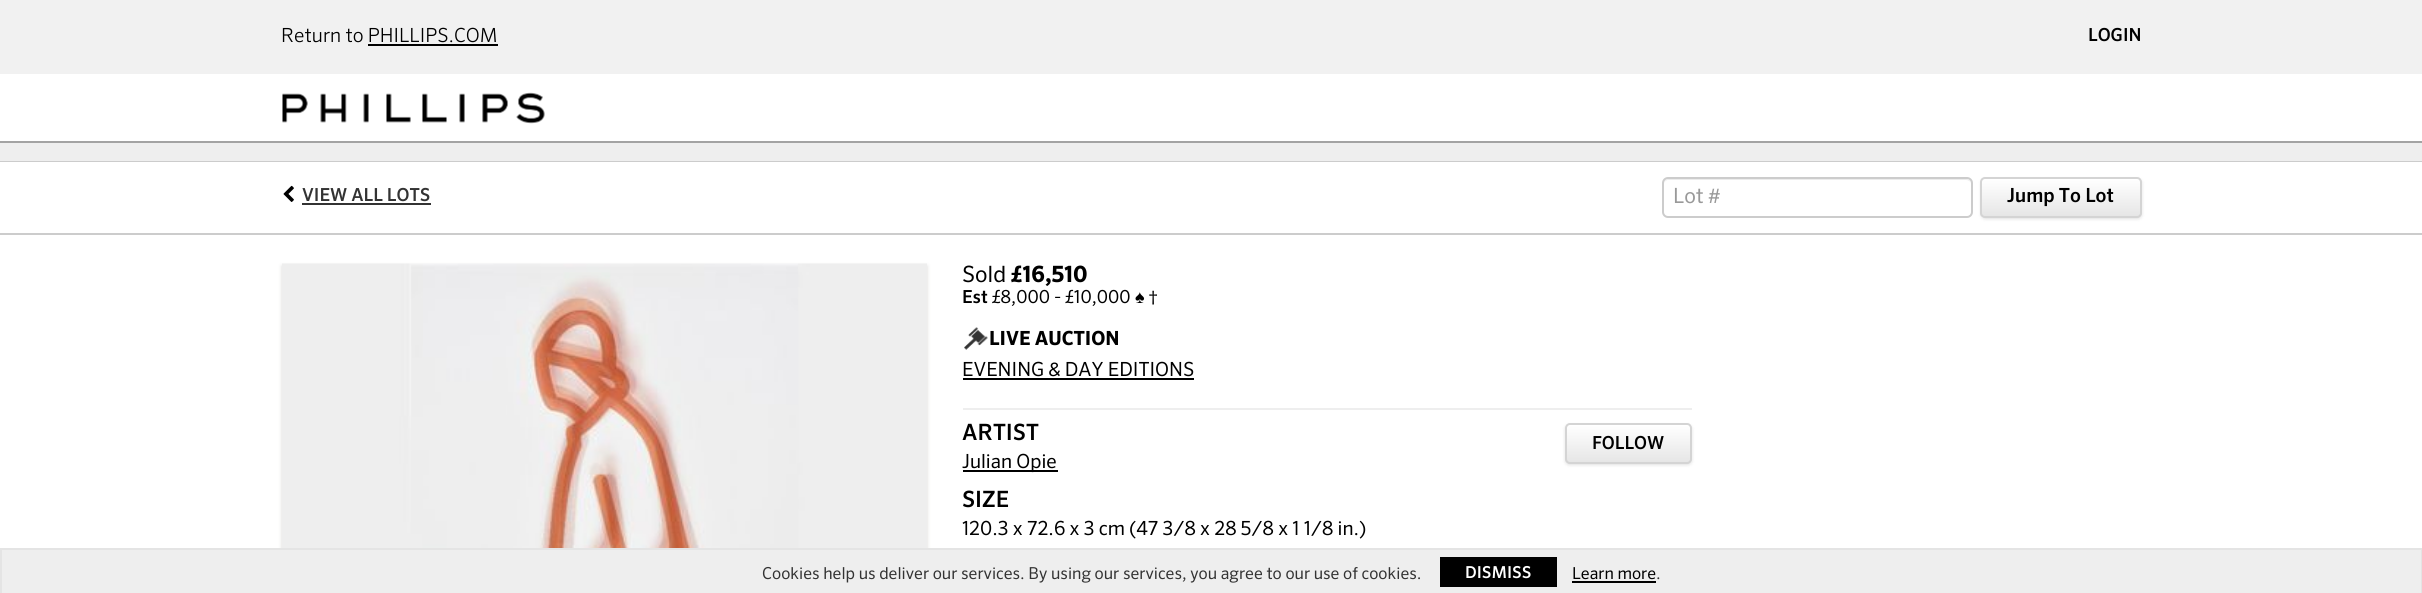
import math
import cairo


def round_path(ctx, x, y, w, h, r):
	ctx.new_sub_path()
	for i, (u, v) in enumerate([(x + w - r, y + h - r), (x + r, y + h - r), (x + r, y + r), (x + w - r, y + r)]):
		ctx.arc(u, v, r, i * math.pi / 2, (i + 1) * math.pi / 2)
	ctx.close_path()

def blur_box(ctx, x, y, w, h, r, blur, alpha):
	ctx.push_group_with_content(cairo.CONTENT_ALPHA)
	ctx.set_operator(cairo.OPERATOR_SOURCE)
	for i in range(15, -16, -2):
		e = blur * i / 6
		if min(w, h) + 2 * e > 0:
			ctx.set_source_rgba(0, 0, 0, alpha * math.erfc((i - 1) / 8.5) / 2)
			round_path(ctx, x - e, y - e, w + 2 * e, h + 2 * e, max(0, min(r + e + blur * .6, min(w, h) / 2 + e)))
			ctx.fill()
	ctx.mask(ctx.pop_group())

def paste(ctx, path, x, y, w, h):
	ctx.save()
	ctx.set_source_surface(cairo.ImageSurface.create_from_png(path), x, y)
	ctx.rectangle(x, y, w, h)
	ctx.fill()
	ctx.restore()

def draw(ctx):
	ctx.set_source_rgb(1, 1, 1)
	ctx.paint()
	ctx.set_source_rgb(0.639, 0.639, 0.639)
	ctx.rectangle(0, 141, 2422, 2)
	ctx.fill()
	ctx.set_source_rgb(0.945, 0.945, 0.945)
	ctx.rectangle(0, 0, 2422, 74)
	ctx.fill()
	ctx.select_font_face('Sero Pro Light')
	ctx.set_font_size(19.5)
	ctx.set_source_rgb(0, 0, 0)
	ctx.move_to(281, 42)
	ctx.show_text('Return to PHILLIPS.COM')
	ctx.rectangle(368, 44, 130, 2)
	ctx.fill()
	ctx.select_font_face('Sero Pro Medium')
	ctx.set_font_size(18)
	ctx.move_to(2088, 41)
	ctx.show_text('LOGIN')
	paste(ctx, 'media/1.png', 282, 92, 263, 32)
	ctx.set_source_rgb(0.933, 0.933, 0.933)
	ctx.rectangle(0, 143, 2422, 18)
	ctx.fill()
	ctx.set_source_rgb(0.8, 0.8, 0.8)
	ctx.rectangle(0, 161, 2422, 1)
	ctx.fill()
	paste(ctx, 'media/2.png', 283, 185, 11, 17)
	ctx.set_source_rgb(0.2, 0.2, 0.2)
	ctx.move_to(302, 201)
	ctx.show_text('VIEW ALL LOTS')
	ctx.rectangle(302, 203, 129, 2)
	ctx.fill()
	ctx.set_source_rgb(0.925, 0.925, 0.925)
	ctx.new_path()
	ctx.move_to(1668, 180)
	ctx.line_to(1966, 180)
	ctx.curve_to(1969, 180, 1971, 182, 1971, 184)
	ctx.curve_to(1971, 181, 1969, 179, 1966, 179)
	ctx.line_to(1669, 179)
	ctx.curve_to(1666, 179, 1664, 181, 1664, 184)
	ctx.curve_to(1664, 182, 1666, 180, 1668, 180)
	ctx.close_path()
	ctx.fill()
	round_path(ctx, 1663, 178, 309, 39, 5)
	ctx.set_source_rgb(0.8, 0.8, 0.8)
	ctx.stroke()
	ctx.select_font_face('Sero Pro')
	ctx.set_font_size(21)
	ctx.set_source_rgb(0.6, 0.6, 0.6)
	ctx.move_to(1673, 203)
	ctx.show_text('Lot #')
	ctx.set_source_rgb(0, 0, 0)
	blur_box(ctx, 1982, 180, 159, 38, 3, 2, 0.2)
	ctx.save()
	round_path(ctx, 1980, 177, 162, 41, 5)
	ctx.clip()
	gradient = cairo.LinearGradient(2061, 179, 2061, 216)
	gradient.add_color_stop_rgba(0, 1, 1, 1, 1)
	gradient.add_color_stop_rgba(1, 0.902, 0.902, 0.902, 1)
	ctx.set_source(gradient)
	ctx.rectangle(1980, 179, 162, 37)
	ctx.fill()
	ctx.restore()
	ctx.set_source_rgba(1, 1, 1, 0.4)
	ctx.new_path()
	ctx.move_to(1984, 180)
	ctx.line_to(2138, 180)
	ctx.curve_to(2142, 180, 2140, 192, 2140, 193)
	ctx.line_to(2140, 215)
	ctx.curve_to(2141, 215, 2141, 214, 2141, 213)
	ctx.line_to(2141, 182)
	ctx.curve_to(2141, 180, 2140, 179, 2138, 179)
	ctx.line_to(1985, 179)
	ctx.curve_to(1983, 179, 1982, 180, 1982, 182)
	ctx.line_to(1982, 183)
	ctx.curve_to(1982, 181, 1983, 180, 1984, 180)
	ctx.close_path()
	ctx.fill()
	round_path(ctx, 1981, 178, 160, 39, 4)
	ctx.set_source_rgb(0.831, 0.831, 0.831)
	ctx.stroke()
	ctx.select_font_face('Sero Pro Medium')
	ctx.set_font_size(19.5)
	ctx.set_source_rgb(0, 0, 0)
	ctx.move_to(2007, 202)
	ctx.show_text('Jump To Lot')
	ctx.set_source_rgb(0.8, 0.8, 0.8)
	ctx.rectangle(0, 233, 2422, 2)
	ctx.fill()
	ctx.set_source_rgb(0.855, 0.851, 0.843)
	blur_box(ctx, 282, 266, 645, 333, 0, 2, 1)
	paste(ctx, 'media/3.png', 282, 263, 645, 285)
	ctx.select_font_face('Sero Pro')
	ctx.set_font_size(22.5)
	ctx.set_source_rgb(0, 0, 0)
	ctx.move_to(962, 282)
	ctx.show_text('Sold')
	ctx.select_font_face('Sero Pro', cairo.FONT_SLANT_NORMAL, cairo.FONT_WEIGHT_BOLD)
	ctx.move_to(1011, 282)
	ctx.show_text('£16,510')
	ctx.select_font_face('Sero Pro Medium')
	ctx.set_font_size(18)
	ctx.move_to(962, 303)
	ctx.show_text('Est')
	ctx.select_font_face('Sero Pro')
	ctx.move_to(992, 303)
	ctx.show_text('£8,000 - £10,000')
	ctx.select_font_face('Liberation Sans')
	ctx.move_to(1135, 303)
	ctx.show_text('♠')
	ctx.select_font_face('Sero Pro')
	ctx.move_to(1148, 303)
	ctx.show_text('†')
	paste(ctx, 'media/4.png', 964, 327, 24, 23)
	ctx.select_font_face('Sero Pro', cairo.FONT_SLANT_NORMAL, cairo.FONT_WEIGHT_BOLD)
	ctx.set_font_size(19.5)
	ctx.move_to(989, 345)
	ctx.show_text('LIVE AUCTION')
	ctx.select_font_face('Sero Pro')
	ctx.move_to(962, 376)
	ctx.show_text('EVENING & DAY EDITIONS')
	ctx.rectangle(963, 378, 231, 2)
	ctx.fill()
	ctx.set_source_rgb(0.933, 0.933, 0.933)
	ctx.rectangle(963, 408, 729, 2)
	ctx.fill()
	ctx.select_font_face('Sero Pro Medium')
	ctx.set_font_size(22.5)
	ctx.set_source_rgb(0, 0, 0)
	ctx.move_to(962, 440)
	ctx.show_text('ARTIST')
	ctx.set_source_rgb(0, 0, 0)
	blur_box(ctx, 1566, 426, 125, 38, 3, 2, 0.2)
	ctx.save()
	round_path(ctx, 1565, 423, 127, 41, 5)
	ctx.clip()
	gradient = cairo.LinearGradient(1628, 425, 1628, 462)
	gradient.add_color_stop_rgba(0, 1, 1, 1, 1)
	gradient.add_color_stop_rgba(1, 0.902, 0.902, 0.902, 1)
	ctx.set_source(gradient)
	ctx.rectangle(1565, 425, 127, 37)
	ctx.fill()
	ctx.restore()
	ctx.set_source_rgba(1, 1, 1, 0.4)
	ctx.new_path()
	ctx.move_to(1569, 426)
	ctx.line_to(1668, 426)
	ctx.curve_to(1692, 426, 1690, 421, 1690, 439)
	ctx.line_to(1690, 461)
	ctx.curve_to(1691, 461, 1691, 460, 1691, 459)
	ctx.line_to(1691, 428)
	ctx.curve_to(1691, 426, 1690, 425, 1688, 425)
	ctx.line_to(1569, 425)
	ctx.curve_to(1567, 425, 1566, 426, 1566, 428)
	ctx.line_to(1566, 429)
	ctx.curve_to(1566, 427, 1567, 426, 1569, 426)
	ctx.close_path()
	ctx.fill()
	round_path(ctx, 1566, 424, 125, 39, 4)
	ctx.set_source_rgb(0.831, 0.831, 0.831)
	ctx.stroke()
	ctx.set_font_size(18)
	ctx.set_source_rgb(0, 0, 0)
	ctx.move_to(1592, 449)
	ctx.show_text('FOLLOW')
	ctx.rectangle(963, 470, 95, 2)
	ctx.fill()
	ctx.select_font_face('Sero Pro')
	ctx.set_font_size(19.5)
	ctx.move_to(962, 468)
	ctx.show_text('Julian Opie')
	ctx.select_font_face('Sero Pro Medium')
	ctx.set_font_size(22.5)
	ctx.move_to(962, 507)
	ctx.show_text('SIZE')
	ctx.select_font_face('Sero Pro')
	ctx.set_font_size(19.5)
	ctx.move_to(962, 535)
	ctx.show_text('120.3 x 72.6 x 3 cm (47 3/8 x 28 5/8 x 1 1/8 in.)')
	ctx.set_source_rgb(0.933, 0.933, 0.933)
	ctx.rectangle(2, 550, 2419, 43)
	ctx.fill()
	ctx.set_source_rgb(0.894, 0.894, 0.894)
	ctx.rectangle(0, 548, 2422, 2)
	ctx.rectangle(2421, 548, 1, 45)
	ctx.rectangle(0, 548, 2, 45)
	ctx.fill()
	ctx.set_font_size(16.5)
	ctx.set_source_rgb(0.2, 0.2, 0.2)
	ctx.move_to(762, 579)
	ctx.show_text('Cookies help us deliver our services. By using our services, you agree to our use of cookies.')
	ctx.set_source_rgb(0, 0, 0)
	ctx.rectangle(1440, 557, 117, 30)
	ctx.fill()
	ctx.select_font_face('Sero Pro Medium')
	ctx.set_source_rgb(1, 1, 1)
	ctx.move_to(1465, 578)
	ctx.show_text('DISMISS')
	ctx.select_font_face('Sero Pro')
	ctx.set_source_rgb(0, 0, 0)
	ctx.move_to(1572, 579)
	ctx.show_text('Learn more')
	ctx.rectangle(1572, 581, 84, 2)
	ctx.fill()
	ctx.set_source_rgb(0.2, 0.2, 0.2)
	ctx.move_to(1656, 579)
	ctx.show_text('.')


surface = cairo.ImageSurface(cairo.FORMAT_RGB24, 2422, 593)
ctx = cairo.Context(surface)
options = cairo.FontOptions()
options.set_hint_metrics(cairo.HINT_METRICS_OFF)
options.set_hint_style(cairo.HINT_STYLE_NONE)
ctx.set_font_options(options)
ctx.set_miter_limit(4)
draw(ctx)
surface.write_to_png('image.png')
